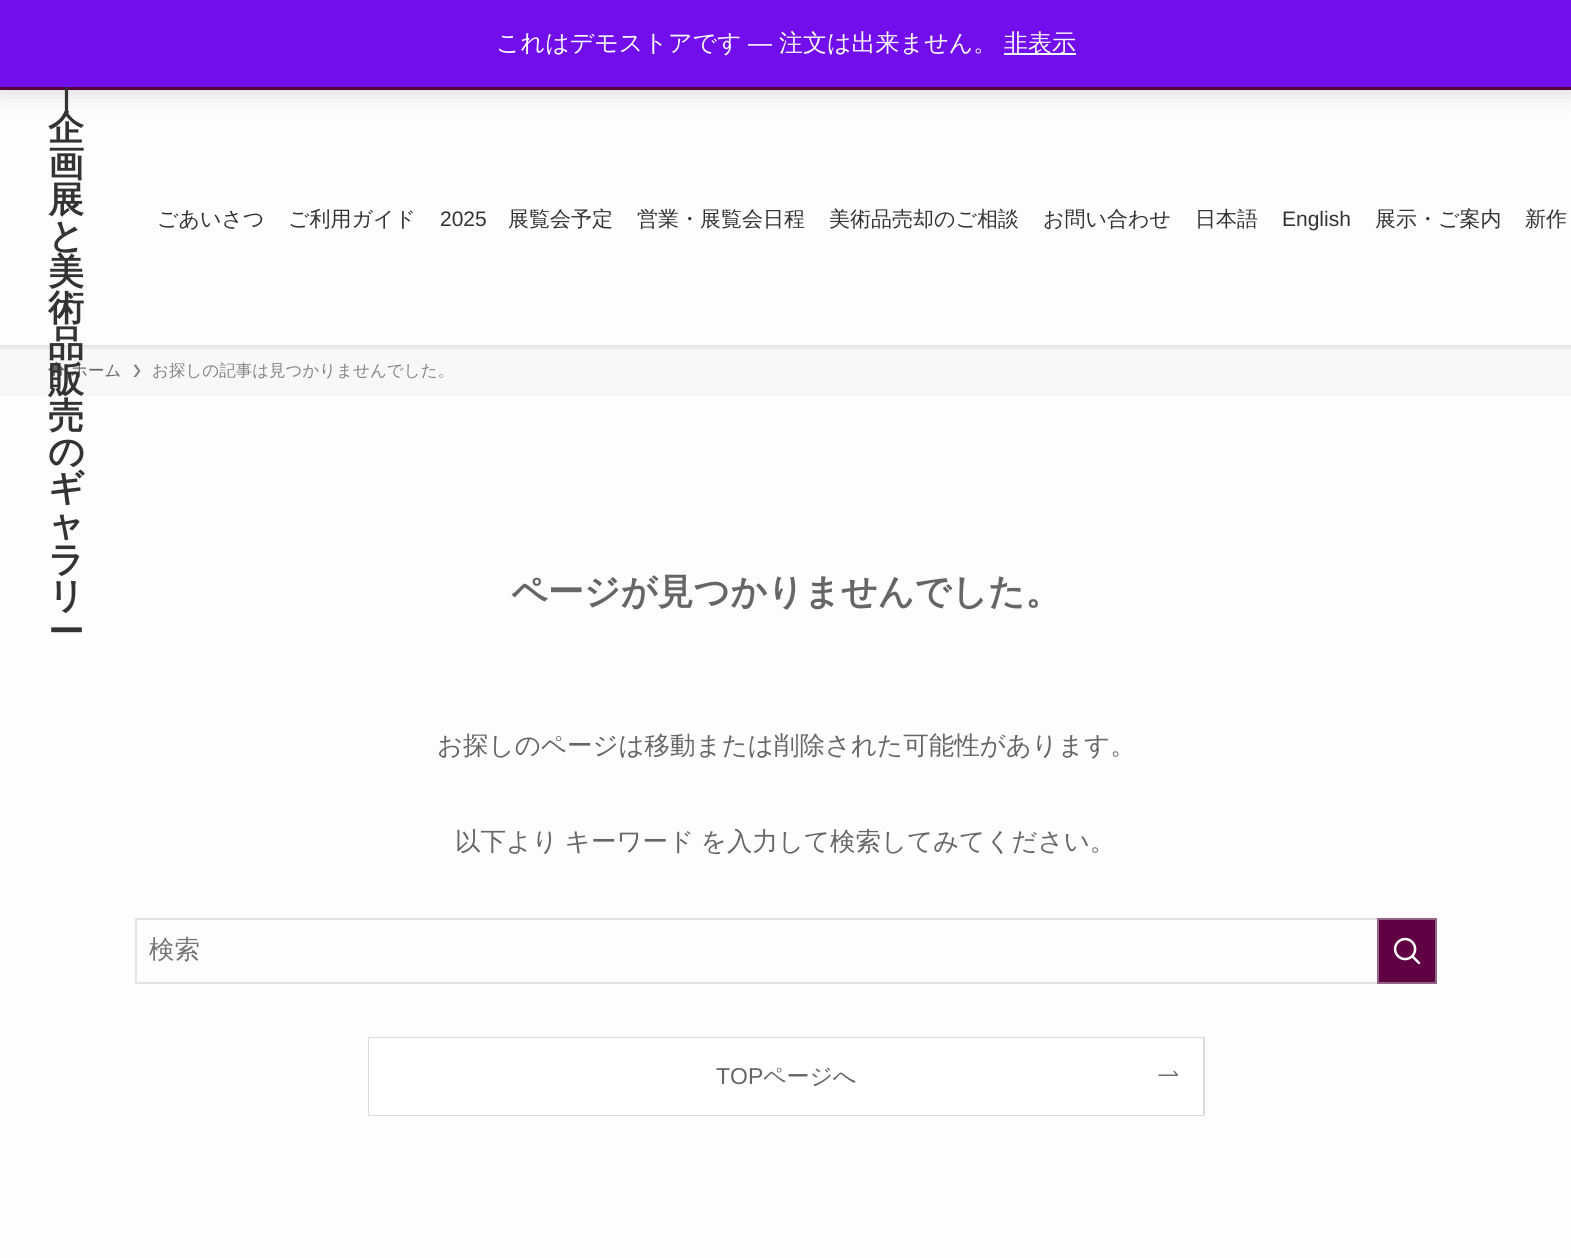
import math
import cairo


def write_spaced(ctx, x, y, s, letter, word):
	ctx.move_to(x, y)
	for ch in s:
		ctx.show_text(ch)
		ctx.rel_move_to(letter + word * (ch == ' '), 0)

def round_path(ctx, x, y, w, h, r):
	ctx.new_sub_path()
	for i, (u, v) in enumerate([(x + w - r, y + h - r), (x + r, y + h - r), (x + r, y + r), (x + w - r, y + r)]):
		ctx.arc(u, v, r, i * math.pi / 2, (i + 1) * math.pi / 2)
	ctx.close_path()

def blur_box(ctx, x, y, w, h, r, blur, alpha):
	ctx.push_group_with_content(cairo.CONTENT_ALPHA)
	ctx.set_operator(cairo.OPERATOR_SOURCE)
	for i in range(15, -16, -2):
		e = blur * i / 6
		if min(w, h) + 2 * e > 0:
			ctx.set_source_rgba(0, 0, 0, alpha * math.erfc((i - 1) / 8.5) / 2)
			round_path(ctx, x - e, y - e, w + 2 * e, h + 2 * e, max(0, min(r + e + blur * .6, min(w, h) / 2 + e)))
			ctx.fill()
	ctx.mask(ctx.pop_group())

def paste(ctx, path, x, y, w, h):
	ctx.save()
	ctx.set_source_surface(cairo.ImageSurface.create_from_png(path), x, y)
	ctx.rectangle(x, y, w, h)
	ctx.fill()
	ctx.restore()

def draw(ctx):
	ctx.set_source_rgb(0.992, 0.992, 0.992)
	ctx.paint()
	ctx.set_source_rgb(0.969, 0.969, 0.969)
	ctx.rectangle(0, 345, 1571, 51)
	ctx.fill()
	ctx.save()
	ctx.rectangle(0, 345, 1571, 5)
	ctx.clip()
	ctx.set_source_rgb(0, 0, 0)
	blur_box(ctx, 0, 59, 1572, 288, 0, 3, 0.12)
	ctx.restore()
	ctx.set_source_rgb(0.376, 0.004, 0.267)
	ctx.rectangle(0, 87, 1571, 3)
	ctx.fill()
	ctx.set_source_rgb(0, 0, 0)
	blur_box(ctx, 0, 2, 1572, 87, 0, 12, 0.2)
	ctx.select_font_face('WenQuanYi Zen Hei', cairo.FONT_SLANT_NORMAL, cairo.FONT_WEIGHT_BOLD)
	ctx.set_font_size(36)
	ctx.set_source_rgb(0.2, 0.2, 0.2)
	ctx.move_to(48, 104)
	ctx.show_text('｜')
	ctx.set_source_rgb(0.447, 0.055, 0.925)
	ctx.rectangle(0, 0, 1571, 87)
	ctx.fill()
	ctx.select_font_face('WenQuanYi Zen Hei Medium')
	ctx.set_font_size(24)
	ctx.set_source_rgb(0.988, 0.984, 0.996)
	ctx.move_to(496, 51)
	ctx.show_text('これはデモストアです')
	ctx.select_font_face('Liberation Sans')
	ctx.move_to(748, 51)
	ctx.show_text('—')
	ctx.select_font_face('WenQuanYi Zen Hei Medium')
	ctx.move_to(779, 51)
	ctx.show_text('注文は出来ません。')
	ctx.rectangle(1004, 53, 72, 2)
	ctx.fill()
	ctx.move_to(1004, 51)
	ctx.show_text('非表示')
	ctx.select_font_face('WenQuanYi Zen Hei', cairo.FONT_SLANT_NORMAL, cairo.FONT_WEIGHT_BOLD)
	ctx.set_font_size(36)
	ctx.set_source_rgb(0.2, 0.2, 0.2)
	for x, y, s in [
		(48, 140, '企'),
		(48, 176, '画'),
		(48, 212, '展'),
		(48, 248, 'と'),
		(48, 284, '美'),
		(48, 320, '術'),
		(48, 356, '品'),
	]:
		ctx.move_to(x, y)
		ctx.show_text(s)
	paste(ctx, 'media/1.png', 48, 361, 17, 15)
	ctx.select_font_face('WenQuanYi Zen Hei Medium')
	ctx.set_font_size(16.5)
	ctx.set_source_rgb(0.4, 0.4, 0.4)
	ctx.move_to(71, 376)
	ctx.show_text('ホーム')
	ctx.select_font_face('WenQuanYi Zen Hei', cairo.FONT_SLANT_NORMAL, cairo.FONT_WEIGHT_BOLD)
	ctx.set_font_size(36)
	ctx.set_source_rgb(0.2, 0.2, 0.2)
	for x, y, s in [
		(48, 392, '販'),
		(48, 428, '売'),
		(48, 464, 'の'),
		(48, 500, 'ギ'),
		(48, 536, 'ャ'),
		(48, 572, 'ラ'),
		(48, 608, 'リ'),
		(48, 644, 'ー'),
	]:
		ctx.move_to(x, y)
		ctx.show_text(s)
	ctx.select_font_face('WenQuanYi Zen Hei Medium')
	ctx.set_font_size(21)
	ctx.move_to(157, 226)
	ctx.show_text('ごあいさつ')
	ctx.move_to(288, 226)
	ctx.show_text('ご利用ガイド')
	ctx.select_font_face('Liberation Sans')
	ctx.move_to(440, 226)
	ctx.show_text('2025')
	ctx.select_font_face('WenQuanYi Zen Hei Medium')
	for x, y, s in [
		(508, 226, '展覧会予定'),
		(637, 226, '営業・展覧会日程'),
		(829, 226, '美術品売却のご相談'),
		(1043, 226, 'お問い合わせ'),
		(1195, 226, '日本語'),
	]:
		ctx.move_to(x, y)
		ctx.show_text(s)
	ctx.select_font_face('Liberation Sans')
	ctx.move_to(1282, 226)
	ctx.show_text('English')
	ctx.select_font_face('WenQuanYi Zen Hei Medium')
	ctx.move_to(1375, 226)
	ctx.show_text('展示・ご案内')
	ctx.move_to(1525, 226)
	ctx.show_text('新作')
	ctx.set_source_rgb(0.514, 0.514, 0.514)
	ctx.new_path()
	ctx.move_to(136, 364.5)
	ctx.line_to(133.5, 365)
	ctx.line_to(138, 371)
	ctx.line_to(133.5, 377)
	ctx.line_to(136, 377)
	ctx.line_to(140.5, 371)
	ctx.close_path()
	ctx.fill()
	ctx.set_font_size(16.5)
	ctx.move_to(152, 376)
	ctx.show_text('お探しの記事は見つかりませんでした。')
	ctx.select_font_face('WenQuanYi Zen Hei', cairo.FONT_SLANT_NORMAL, cairo.FONT_WEIGHT_BOLD)
	ctx.set_font_size(36)
	ctx.set_source_rgb(0.4, 0.4, 0.4)
	ctx.move_to(511, 604)
	ctx.show_text('ページが見つかりませんでした。')
	ctx.select_font_face('WenQuanYi Zen Hei Medium')
	ctx.set_font_size(25.5)
	ctx.move_to(437, 754)
	ctx.show_text('お探しのページは移動または削除された可能性があります。')
	write_spaced(ctx, 455, 850, '以下より キーワード を入力して検索してみてください。', 0, -1)
	ctx.rectangle(136, 919, 1300, 64)
	ctx.set_source_rgb(0.89, 0.89, 0.89)
	ctx.stroke()
	ctx.set_source_rgb(0.459, 0.459, 0.459)
	ctx.move_to(149, 958)
	ctx.show_text('検索')
	ctx.set_source_rgb(0.376, 0.004, 0.267)
	ctx.rectangle(1378, 919, 58, 64)
	ctx.fill_preserve()
	ctx.set_source_rgb(0.58, 0.392, 0.525)
	ctx.stroke()
	paste(ctx, 'media/2.png', 1393, 937, 28, 28)
	ctx.rectangle(369, 1038, 835, 77)
	ctx.set_source_rgb(0.863, 0.863, 0.863)
	ctx.stroke()
	ctx.set_source_rgb(1, 1, 1)
	ctx.rectangle(369, 1038, 834, 77)
	ctx.fill()
	ctx.select_font_face('Liberation Sans')
	ctx.set_font_size(23)
	ctx.set_source_rgb(0.4, 0.4, 0.4)
	ctx.move_to(716, 1084)
	ctx.show_text('TOP')
	ctx.select_font_face('WenQuanYi Zen Hei Medium')
	ctx.move_to(763, 1084)
	ctx.show_text('ページへ')
	paste(ctx, 'media/3.png', 1158, 1070, 20, 6)


surface = cairo.ImageSurface(cairo.FORMAT_RGB24, 1571, 1258)
ctx = cairo.Context(surface)
options = cairo.FontOptions()
options.set_hint_metrics(cairo.HINT_METRICS_OFF)
options.set_hint_style(cairo.HINT_STYLE_NONE)
ctx.set_font_options(options)
ctx.set_miter_limit(4)
draw(ctx)
surface.write_to_png('image.png')
